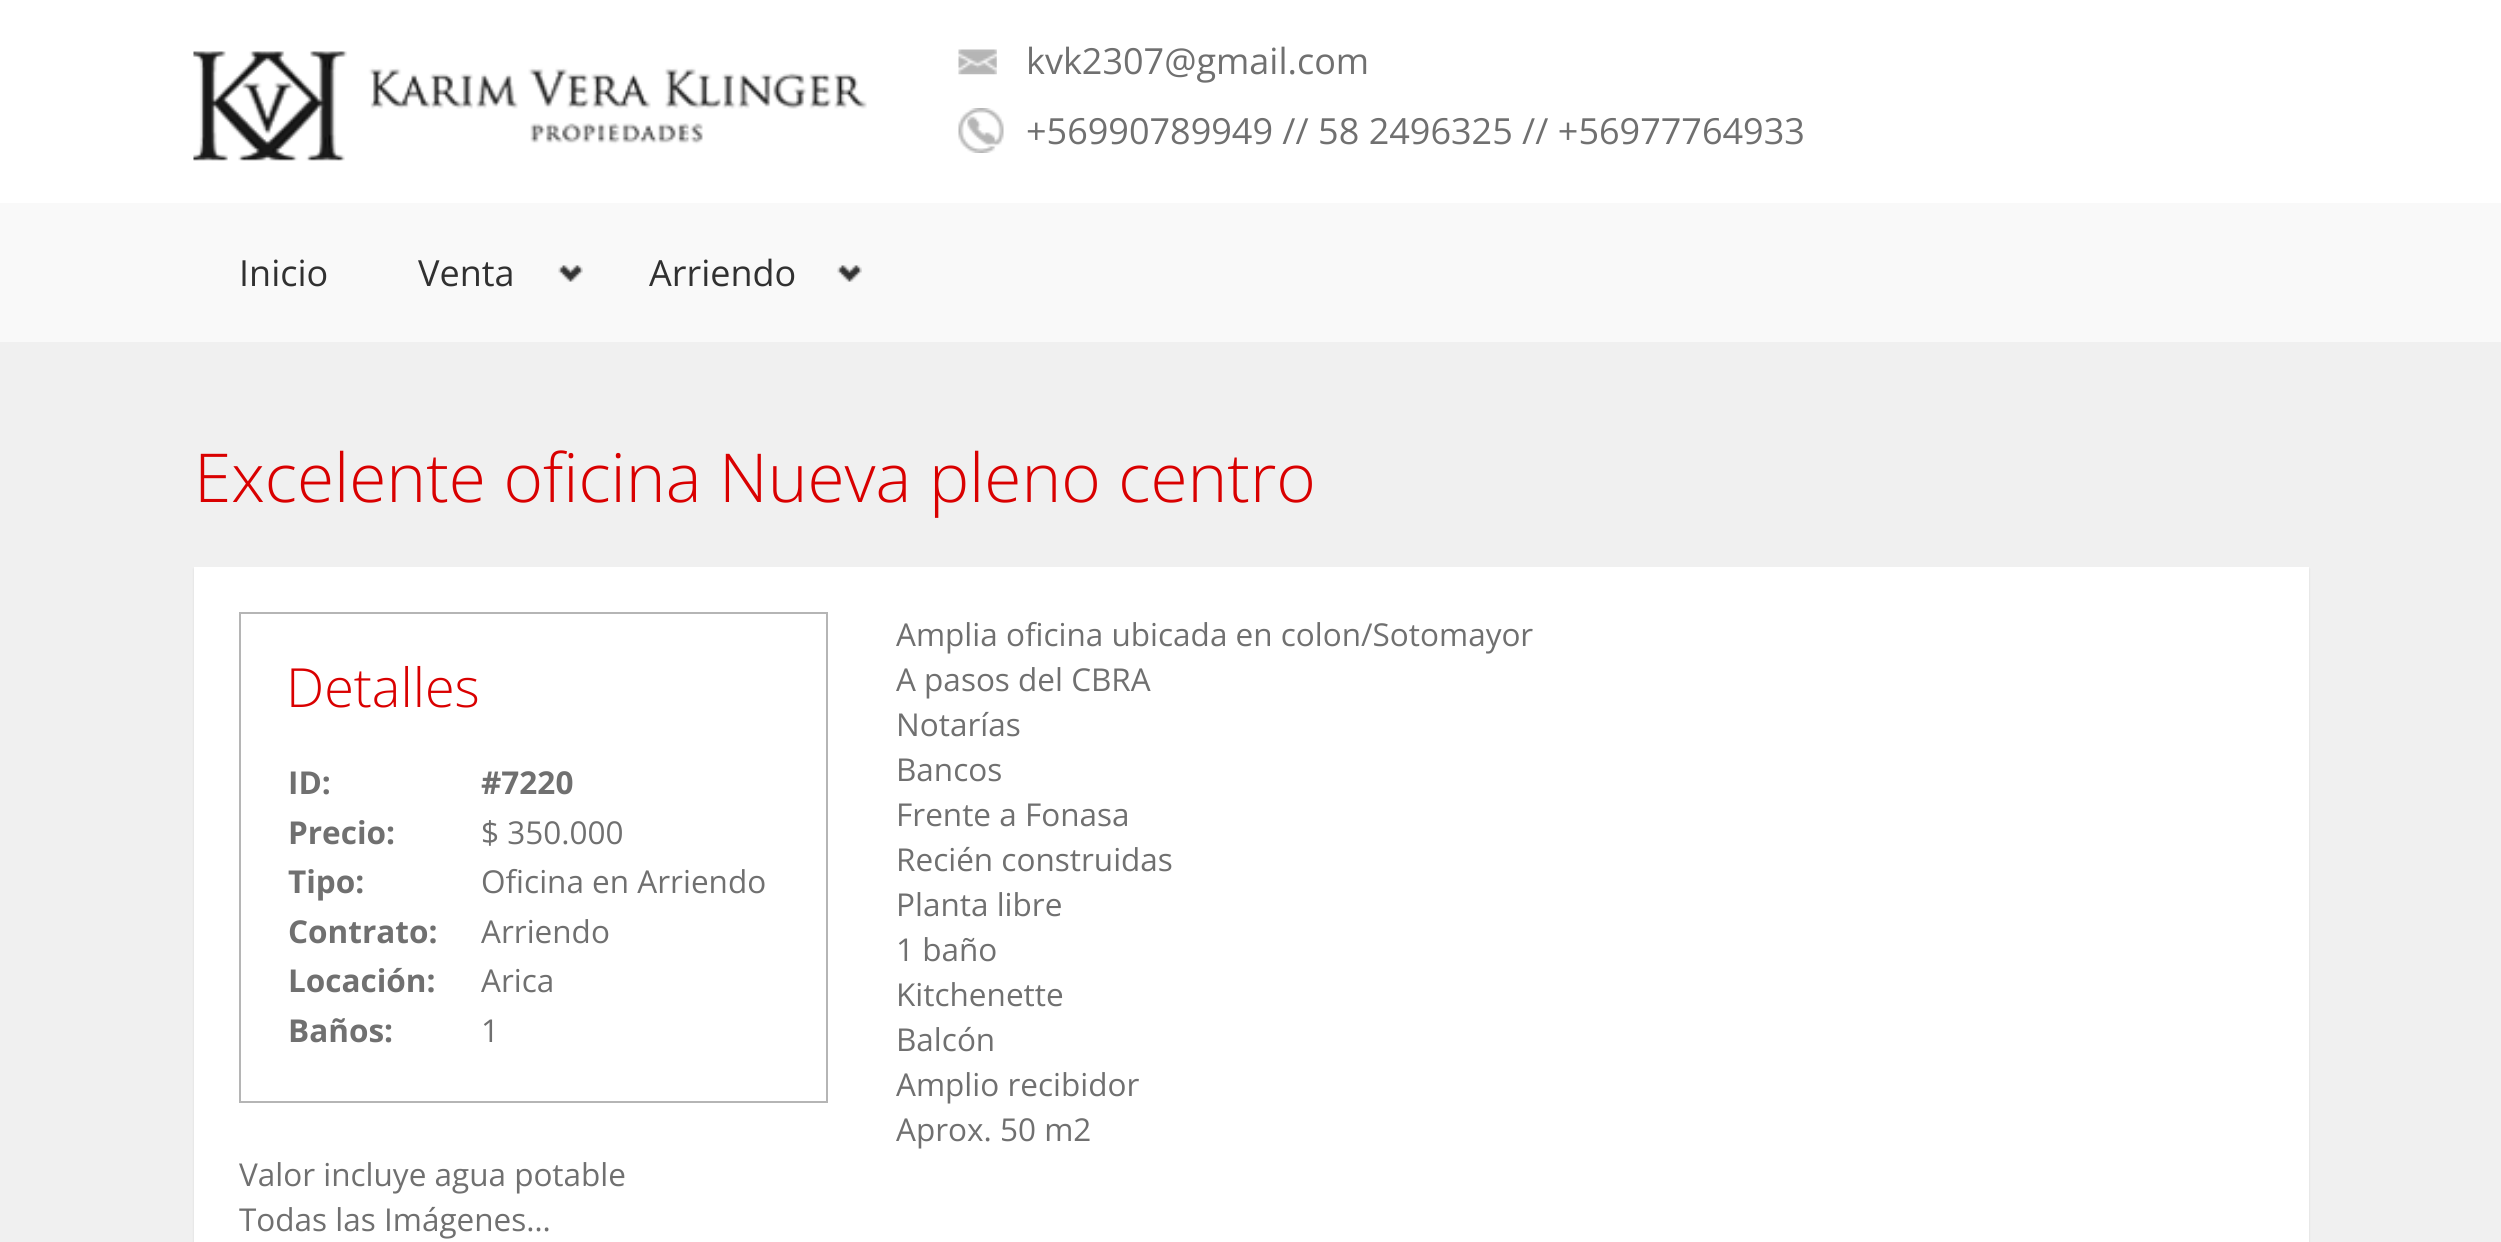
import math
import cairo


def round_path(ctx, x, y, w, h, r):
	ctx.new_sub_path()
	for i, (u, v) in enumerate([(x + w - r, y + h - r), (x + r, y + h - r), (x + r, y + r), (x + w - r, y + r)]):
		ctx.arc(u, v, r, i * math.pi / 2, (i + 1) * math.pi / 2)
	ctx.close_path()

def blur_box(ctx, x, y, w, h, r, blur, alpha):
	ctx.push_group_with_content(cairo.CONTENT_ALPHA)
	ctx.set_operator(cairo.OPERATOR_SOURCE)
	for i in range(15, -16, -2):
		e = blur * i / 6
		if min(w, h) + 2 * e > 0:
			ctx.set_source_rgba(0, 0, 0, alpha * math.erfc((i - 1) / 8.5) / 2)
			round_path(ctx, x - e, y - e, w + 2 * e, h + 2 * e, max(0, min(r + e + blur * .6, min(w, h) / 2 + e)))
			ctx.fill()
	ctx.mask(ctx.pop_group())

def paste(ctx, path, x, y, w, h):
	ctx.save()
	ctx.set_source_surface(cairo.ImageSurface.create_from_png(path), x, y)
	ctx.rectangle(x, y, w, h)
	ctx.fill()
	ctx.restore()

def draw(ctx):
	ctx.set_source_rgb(0.941, 0.941, 0.941)
	ctx.paint()
	ctx.set_source_rgb(1, 1, 1)
	ctx.rectangle(0, 0, 2501, 203)
	ctx.fill()
	paste(ctx, 'media/1.png', 193, 51, 674, 110)
	paste(ctx, 'media/2.png', 958, 49, 39, 26)
	ctx.select_font_face('Open Sans')
	ctx.set_font_size(36)
	ctx.set_source_rgb(0.439, 0.439, 0.439)
	ctx.move_to(1026, 74)
	ctx.show_text('kvk2307@gmail.com')
	paste(ctx, 'media/3.png', 958, 108, 46, 45)
	ctx.move_to(1026, 144)
	ctx.show_text('+56990789949 // 58 2496325 // +56977764933')
	ctx.set_source_rgb(0.973, 0.973, 0.973)
	ctx.rectangle(0, 203, 2501, 139)
	ctx.fill()
	ctx.set_source_rgb(0.192, 0.192, 0.192)
	ctx.move_to(239, 286)
	ctx.show_text('Inicio')
	paste(ctx, 'media/4.png', 558, 265, 25, 17)
	ctx.move_to(418, 286)
	ctx.show_text('Venta')
	paste(ctx, 'media/5.png', 837, 265, 25, 17)
	ctx.move_to(649, 286)
	ctx.show_text('Arriendo')
	ctx.select_font_face('Open Sans Light')
	ctx.set_font_size(67.5)
	ctx.set_source_rgb(0.851, 0, 0)
	ctx.move_to(194, 502)
	ctx.show_text('Excelente oficina Nueva pleno centro')
	ctx.set_source_rgb(0, 0, 0)
	blur_box(ctx, 194, 569, 2115, 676, 0, 1, 0.1)
	ctx.set_source_rgb(1, 1, 1)
	ctx.rectangle(194, 567, 2115, 675)
	ctx.fill()
	ctx.select_font_face('Open Sans')
	ctx.set_font_size(31.5)
	ctx.set_source_rgb(0.439, 0.439, 0.439)
	ctx.move_to(896, 646)
	ctx.show_text('Amplia oficina ubicada en colon/Sotomayor')
	ctx.rectangle(240, 613, 587, 489)
	ctx.set_source_rgb(0.71, 0.71, 0.71)
	ctx.stroke()
	ctx.select_font_face('Open Sans Light')
	ctx.set_font_size(54)
	ctx.set_source_rgb(0.851, 0, 0)
	ctx.move_to(286, 707)
	ctx.show_text('Detalles')
	ctx.select_font_face('Open Sans', cairo.FONT_SLANT_NORMAL, cairo.FONT_WEIGHT_BOLD)
	ctx.set_font_size(31.5)
	ctx.set_source_rgb(0.439, 0.439, 0.439)
	for x, y, s in [
		(288, 794, 'ID:'),
		(481, 794, '#7220'),
		(288, 844, 'Precio:'),
	]:
		ctx.move_to(x, y)
		ctx.show_text(s)
	ctx.select_font_face('Open Sans')
	ctx.move_to(481, 844)
	ctx.show_text('$ 350.000')
	ctx.select_font_face('Open Sans', cairo.FONT_SLANT_NORMAL, cairo.FONT_WEIGHT_BOLD)
	ctx.move_to(288, 893)
	ctx.show_text('Tipo:')
	ctx.select_font_face('Open Sans')
	ctx.move_to(481, 893)
	ctx.show_text('Oficina en Arriendo')
	ctx.select_font_face('Open Sans', cairo.FONT_SLANT_NORMAL, cairo.FONT_WEIGHT_BOLD)
	ctx.move_to(288, 943)
	ctx.show_text('Contrato:')
	ctx.select_font_face('Open Sans')
	ctx.move_to(481, 943)
	ctx.show_text('Arriendo')
	ctx.select_font_face('Open Sans', cairo.FONT_SLANT_NORMAL, cairo.FONT_WEIGHT_BOLD)
	ctx.move_to(288, 992)
	ctx.show_text('Locación:')
	ctx.select_font_face('Open Sans')
	ctx.move_to(481, 992)
	ctx.show_text('Arica')
	ctx.select_font_face('Open Sans', cairo.FONT_SLANT_NORMAL, cairo.FONT_WEIGHT_BOLD)
	ctx.move_to(288, 1042)
	ctx.show_text('Baños:')
	ctx.select_font_face('Open Sans')
	for x, y, s in [
		(481, 1042, '1'),
		(896, 691, 'A pasos del CBRA'),
		(896, 736, 'Notarías'),
		(896, 781, 'Bancos'),
		(896, 826, 'Frente a Fonasa'),
		(896, 871, 'Recién construidas'),
		(896, 916, 'Planta libre'),
		(896, 961, '1 baño'),
		(896, 1006, 'Kitchenette'),
		(896, 1051, 'Balcón'),
		(896, 1096, 'Amplio recibidor'),
		(896, 1141, 'Aprox. 50 m2'),
		(239, 1186, 'Valor incluye agua potable'),
		(239, 1231, 'Todas las Imágenes…'),
	]:
		ctx.move_to(x, y)
		ctx.show_text(s)


surface = cairo.ImageSurface(cairo.FORMAT_RGB24, 2501, 1242)
ctx = cairo.Context(surface)
options = cairo.FontOptions()
options.set_hint_metrics(cairo.HINT_METRICS_OFF)
options.set_hint_style(cairo.HINT_STYLE_NONE)
ctx.set_font_options(options)
ctx.set_miter_limit(4)
draw(ctx)
surface.write_to_png('image.png')
